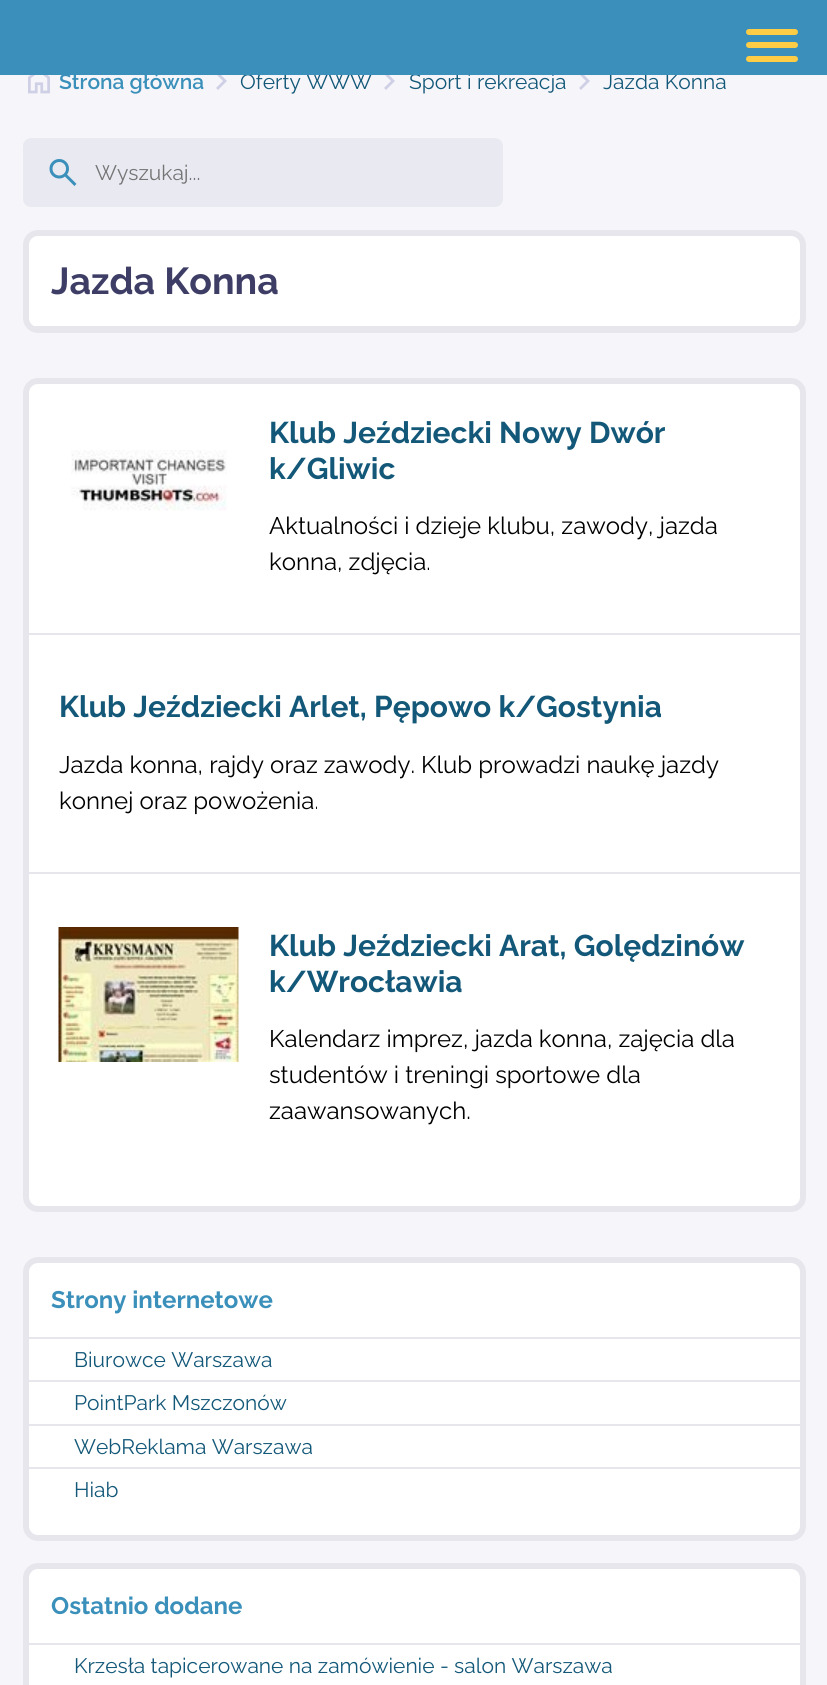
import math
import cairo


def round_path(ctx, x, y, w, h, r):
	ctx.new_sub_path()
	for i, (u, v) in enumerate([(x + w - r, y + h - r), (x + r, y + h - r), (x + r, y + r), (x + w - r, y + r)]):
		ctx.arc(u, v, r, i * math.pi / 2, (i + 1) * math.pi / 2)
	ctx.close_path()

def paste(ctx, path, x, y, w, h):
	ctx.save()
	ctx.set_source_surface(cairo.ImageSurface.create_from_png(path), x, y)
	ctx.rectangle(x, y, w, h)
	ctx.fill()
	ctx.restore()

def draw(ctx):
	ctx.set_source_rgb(0.961, 0.961, 0.98)
	ctx.paint()
	ctx.set_source_rgb(0.812, 0.812, 0.902)
	ctx.new_path()
	ctx.move_to(218, 90)
	ctx.line_to(216, 88)
	ctx.line_to(223, 81)
	ctx.line_to(216, 74)
	ctx.line_to(218, 72)
	ctx.line_to(227, 81)
	ctx.close_path()
	ctx.fill()
	ctx.select_font_face('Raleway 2 Thin')
	ctx.set_font_size(21)
	ctx.set_source_rgb(0.075, 0.345, 0.475)
	ctx.move_to(240, 89)
	ctx.show_text('Oferty WWW')
	ctx.set_source_rgb(0.812, 0.812, 0.902)
	ctx.new_path()
	ctx.move_to(386, 90)
	ctx.line_to(384, 88)
	ctx.line_to(391, 81)
	ctx.line_to(384, 74)
	ctx.line_to(386, 72)
	ctx.line_to(395, 81)
	ctx.close_path()
	ctx.fill()
	ctx.set_source_rgb(0.075, 0.345, 0.475)
	ctx.move_to(409, 89)
	ctx.show_text('Sport i rekreacja')
	ctx.set_source_rgb(0.812, 0.812, 0.902)
	ctx.new_path()
	ctx.move_to(581, 90)
	ctx.line_to(579, 88)
	ctx.line_to(586, 81)
	ctx.line_to(579, 74)
	ctx.line_to(581, 72)
	ctx.line_to(590, 81)
	ctx.close_path()
	ctx.fill()
	ctx.set_source_rgb(0.075, 0.345, 0.475)
	ctx.move_to(603, 89)
	ctx.show_text('Jazda Konna')
	ctx.set_source_rgb(0.227, 0.565, 0.729)
	ctx.rectangle(0, 0, 827, 75)
	ctx.fill()
	ctx.set_source_rgb(1, 0.8, 0.275)
	round_path(ctx, 746, 42, 52, 6, 3)
	ctx.fill()
	round_path(ctx, 746, 29, 52, 6, 3)
	ctx.fill()
	round_path(ctx, 746, 56, 52, 6, 3)
	ctx.fill()
	paste(ctx, 'media/1.png', 28, 75, 22, 19)
	ctx.select_font_face('Raleway Thin')
	ctx.set_source_rgb(0.227, 0.565, 0.729)
	ctx.move_to(59, 89)
	ctx.show_text('Strona główna')
	ctx.set_source_rgb(0.914, 0.914, 0.949)
	round_path(ctx, 23, 138, 480, 69, 8)
	ctx.fill()
	paste(ctx, 'media/2.png', 49, 159, 28, 27)
	ctx.select_font_face('Raleway 2 Thin')
	ctx.set_source_rgb(0.459, 0.459, 0.459)
	ctx.move_to(95, 180)
	ctx.show_text('Wyszukaj...')
	ctx.set_source_rgb(1, 1, 1)
	round_path(ctx, 26, 233, 777, 97, 12)
	ctx.fill_preserve()
	ctx.set_source_rgb(0.902, 0.902, 0.922)
	ctx.set_line_width(6)
	ctx.stroke()
	ctx.rectangle(29, 326, 771, 1)
	ctx.fill()
	ctx.select_font_face('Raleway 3 Thin')
	ctx.set_font_size(37.5)
	ctx.set_source_rgb(0.239, 0.239, 0.4)
	ctx.move_to(51, 294)
	ctx.show_text('Jazda Konna')
	ctx.set_source_rgb(1, 1, 1)
	round_path(ctx, 26, 381, 777, 828, 12)
	ctx.fill_preserve()
	ctx.set_source_rgb(0.902, 0.902, 0.922)
	ctx.stroke()
	ctx.rectangle(29, 633, 771, 2)
	ctx.fill()
	paste(ctx, 'media/3.png', 71, 450, 156, 61)
	ctx.set_font_size(30)
	ctx.set_source_rgb(0.075, 0.345, 0.475)
	ctx.move_to(269, 443)
	ctx.show_text('Klub Jeździecki Nowy Dwór')
	ctx.move_to(269, 479)
	ctx.show_text('k/Gliwic')
	ctx.select_font_face('Raleway 2 Thin')
	ctx.set_font_size(24)
	ctx.set_source_rgb(0, 0, 0)
	ctx.move_to(269, 534)
	ctx.show_text('Aktualności i dzieje klubu, zawody, jazda')
	ctx.move_to(269, 570)
	ctx.show_text('konna, zdjęcia.')
	ctx.set_source_rgb(0.902, 0.902, 0.922)
	ctx.rectangle(29, 872, 771, 2)
	ctx.fill()
	ctx.select_font_face('Raleway 3 Thin')
	ctx.set_font_size(30)
	ctx.set_source_rgb(0.075, 0.345, 0.475)
	ctx.move_to(59, 717)
	ctx.show_text('Klub Jeździecki Arlet, Pępowo k/Gostynia')
	ctx.select_font_face('Raleway 2 Thin')
	ctx.set_font_size(24)
	ctx.set_source_rgb(0, 0, 0)
	ctx.move_to(59, 773)
	ctx.show_text('Jazda konna, rajdy oraz zawody. Klub prowadzi naukę jazdy')
	ctx.move_to(59, 809)
	ctx.show_text('konnej oraz powożenia.')
	paste(ctx, 'media/4.png', 58, 927, 181, 135)
	ctx.select_font_face('Raleway 3 Thin')
	ctx.set_font_size(30)
	ctx.set_source_rgb(0.075, 0.345, 0.475)
	ctx.move_to(269, 956)
	ctx.show_text('Klub Jeździecki Arat, Golędzinów')
	ctx.move_to(269, 992)
	ctx.show_text('k/Wrocławia')
	ctx.select_font_face('Raleway 2 Thin')
	ctx.set_font_size(24)
	ctx.set_source_rgb(0, 0, 0)
	for x, y, s in [
		(269, 1047, 'Kalendarz imprez, jazda konna, zajęcia dla'),
		(269, 1083, 'studentów i treningi sportowe dla'),
		(269, 1119, 'zaawansowanych.'),
	]:
		ctx.move_to(x, y)
		ctx.show_text(s)
	ctx.set_source_rgb(1, 1, 1)
	round_path(ctx, 26, 1260, 777, 278, 12)
	ctx.fill_preserve()
	ctx.set_source_rgb(0.902, 0.902, 0.922)
	ctx.stroke()
	ctx.rectangle(29, 1337, 771, 2)
	ctx.fill()
	ctx.select_font_face('Raleway 3 Thin')
	ctx.set_source_rgb(0.227, 0.565, 0.729)
	ctx.move_to(51, 1308)
	ctx.show_text('Strony internetowe')
	ctx.set_source_rgb(0.902, 0.902, 0.922)
	ctx.rectangle(29, 1380, 771, 2)
	ctx.fill()
	ctx.select_font_face('Raleway 2 Thin')
	ctx.set_font_size(21)
	ctx.set_source_rgb(0.075, 0.345, 0.475)
	ctx.move_to(74, 1367)
	ctx.show_text('Biurowce Warszawa')
	ctx.set_source_rgb(0.902, 0.902, 0.922)
	ctx.rectangle(29, 1424, 771, 2)
	ctx.fill()
	ctx.set_source_rgb(0.075, 0.345, 0.475)
	ctx.move_to(74, 1410)
	ctx.show_text('PointPark Mszczonów')
	ctx.set_source_rgb(0.902, 0.902, 0.922)
	ctx.rectangle(29, 1467, 771, 2)
	ctx.fill()
	ctx.set_source_rgb(0.075, 0.345, 0.475)
	ctx.move_to(74, 1454)
	ctx.show_text('WebReklama Warszawa')
	ctx.move_to(74, 1497)
	ctx.show_text('Hiab')
	ctx.set_source_rgb(1, 1, 1)
	round_path(ctx, 26, 1566, 777, 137, 12)
	ctx.fill_preserve()
	ctx.set_source_rgb(0.902, 0.902, 0.922)
	ctx.stroke()
	ctx.rectangle(29, 1643, 771, 2)
	ctx.fill()
	ctx.select_font_face('Raleway 3 Thin')
	ctx.set_font_size(24)
	ctx.set_source_rgb(0.227, 0.565, 0.729)
	ctx.move_to(51, 1614)
	ctx.show_text('Ostatnio dodane')
	ctx.select_font_face('Raleway 2 Thin')
	ctx.set_font_size(21)
	ctx.set_source_rgb(0.075, 0.345, 0.475)
	ctx.move_to(74, 1673)
	ctx.show_text('Krzesła tapicerowane na zamówienie - salon Warszawa')


surface = cairo.ImageSurface(cairo.FORMAT_RGB24, 827, 1685)
ctx = cairo.Context(surface)
options = cairo.FontOptions()
options.set_hint_metrics(cairo.HINT_METRICS_OFF)
options.set_hint_style(cairo.HINT_STYLE_NONE)
ctx.set_font_options(options)
ctx.set_miter_limit(4)
draw(ctx)
surface.write_to_png('image.png')
